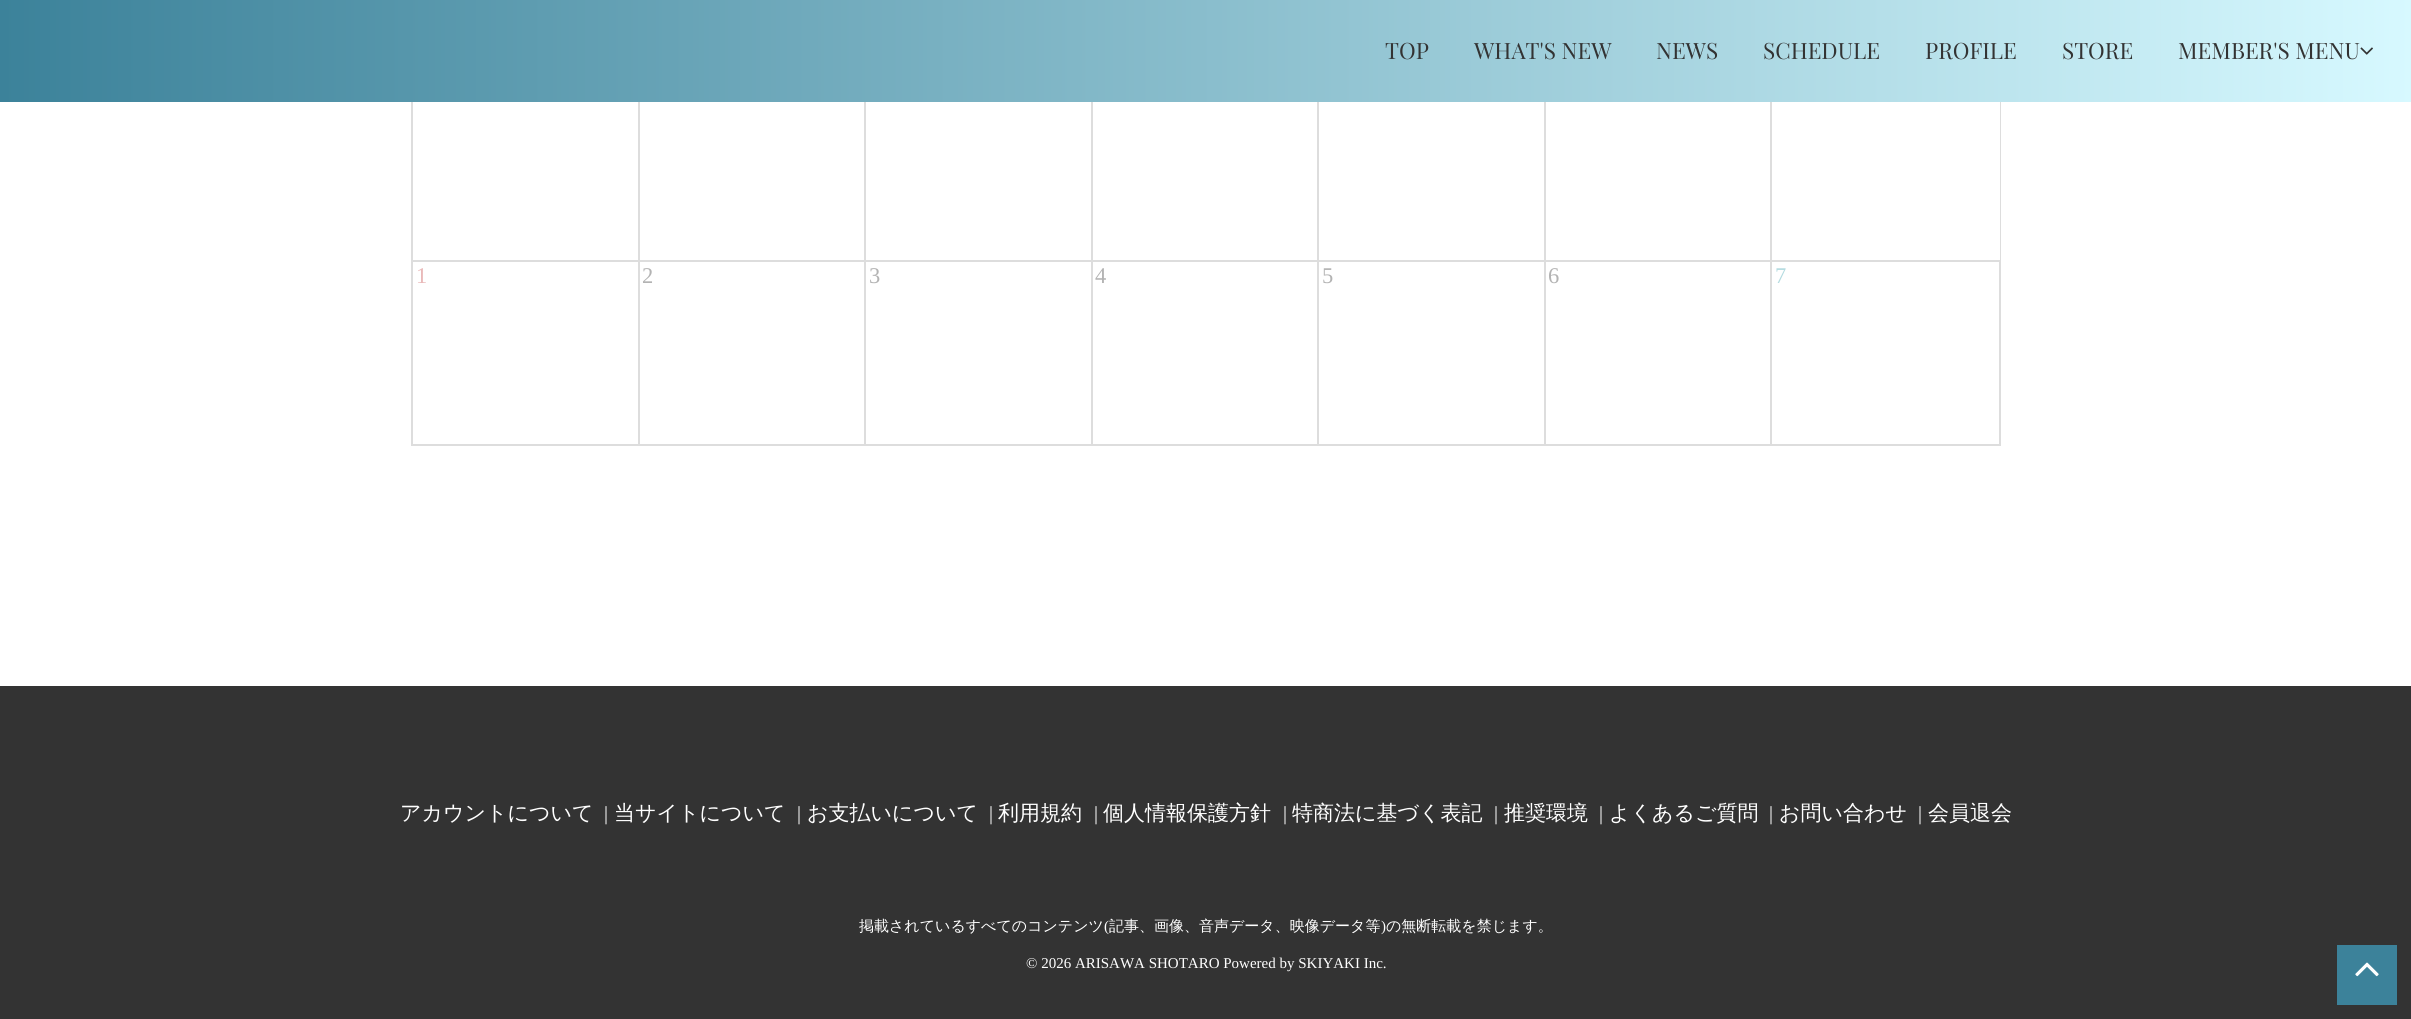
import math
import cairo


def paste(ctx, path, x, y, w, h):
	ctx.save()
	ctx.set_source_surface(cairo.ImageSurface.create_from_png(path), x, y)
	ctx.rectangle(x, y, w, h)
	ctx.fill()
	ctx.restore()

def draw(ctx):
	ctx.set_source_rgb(1, 1, 1)
	ctx.paint()
	gradient = cairo.LinearGradient(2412, 51, 0, 51)
	gradient.add_color_stop_rgba(0, 0.843, 0.976, 1, 1)
	gradient.add_color_stop_rgba(1, 0.235, 0.51, 0.604, 1)
	ctx.set_source(gradient)
	ctx.rectangle(0, 0, 2411, 102)
	ctx.fill()
	ctx.select_font_face('Playfair Display')
	ctx.set_font_size(22.5)
	ctx.set_source_rgb(0.2, 0.2, 0.2)
	for x, y, s in [
		(1385, 59, 'TOP'),
		(1474, 59, 'WHAT\'S NEW'),
		(1656, 59, 'NEWS'),
		(1763, 59, 'SCHEDULE'),
		(1925, 59, 'PROFILE'),
		(2062, 59, 'STORE'),
		(2178, 59, 'MEMBER\'S MENU'),
	]:
		ctx.move_to(x, y)
		ctx.show_text(s)
	paste(ctx, 'media/1.png', 2360, 47, 13, 8)
	ctx.set_source_rgb(0.867, 0.867, 0.867)
	ctx.rectangle(411, 102, 2, 158)
	ctx.rectangle(638, 102, 2, 158)
	ctx.rectangle(864, 102, 2, 158)
	ctx.rectangle(1091, 102, 2, 158)
	ctx.rectangle(1317, 102, 2, 158)
	ctx.rectangle(1544, 102, 2, 158)
	ctx.rectangle(2000, 102, 1, 158)
	ctx.rectangle(1770, 102, 2, 158)
	ctx.rectangle(411, 260, 1359, 2)
	ctx.rectangle(411, 444, 1359, 2)
	ctx.rectangle(411, 260, 2, 186)
	ctx.fill()
	ctx.select_font_face('Liberation Serif')
	ctx.set_source_rgb(0.914, 0.725, 0.725)
	ctx.move_to(416, 283)
	ctx.show_text('1')
	ctx.set_source_rgb(0.867, 0.867, 0.867)
	ctx.rectangle(638, 260, 2, 186)
	ctx.fill()
	ctx.set_source_rgb(0.702, 0.702, 0.702)
	ctx.move_to(642, 283)
	ctx.show_text('2')
	ctx.set_source_rgb(0.867, 0.867, 0.867)
	ctx.rectangle(864, 260, 2, 186)
	ctx.fill()
	ctx.set_source_rgb(0.702, 0.702, 0.702)
	ctx.move_to(869, 283)
	ctx.show_text('3')
	ctx.set_source_rgb(0.867, 0.867, 0.867)
	ctx.rectangle(1091, 260, 2, 186)
	ctx.fill()
	ctx.set_source_rgb(0.702, 0.702, 0.702)
	ctx.move_to(1095, 283)
	ctx.show_text('4')
	ctx.set_source_rgb(0.867, 0.867, 0.867)
	ctx.rectangle(1317, 260, 2, 186)
	ctx.fill()
	ctx.set_source_rgb(0.702, 0.702, 0.702)
	ctx.move_to(1322, 283)
	ctx.show_text('5')
	ctx.set_source_rgb(0.867, 0.867, 0.867)
	ctx.rectangle(1544, 260, 2, 186)
	ctx.fill()
	ctx.set_source_rgb(0.702, 0.702, 0.702)
	ctx.move_to(1548, 283)
	ctx.show_text('6')
	ctx.rectangle(1771, 261, 229, 184)
	ctx.set_source_rgb(0.867, 0.867, 0.867)
	ctx.stroke()
	ctx.set_source_rgb(0.706, 0.859, 0.878)
	ctx.move_to(1775, 283)
	ctx.show_text('7')
	ctx.set_source_rgb(0.2, 0.2, 0.2)
	ctx.rectangle(0, 686, 2411, 333)
	ctx.fill()
	ctx.select_font_face('WenQuanYi Zen Hei Medium')
	ctx.set_font_size(21)
	ctx.set_source_rgb(1, 1, 1)
	ctx.move_to(400, 820)
	ctx.show_text('アカウントについて')
	ctx.select_font_face('Liberation Serif')
	ctx.set_font_size(20)
	ctx.move_to(604, 820)
	ctx.show_text('|')
	ctx.select_font_face('WenQuanYi Zen Hei Medium')
	ctx.set_font_size(21)
	ctx.move_to(614, 820)
	ctx.show_text('当サイトについて')
	ctx.select_font_face('Liberation Serif')
	ctx.set_font_size(20)
	ctx.move_to(797, 820)
	ctx.show_text('|')
	ctx.select_font_face('WenQuanYi Zen Hei Medium')
	ctx.set_font_size(21)
	ctx.move_to(807, 820)
	ctx.show_text('お支払いについて')
	ctx.select_font_face('Liberation Serif')
	ctx.set_font_size(20)
	ctx.move_to(989, 820)
	ctx.show_text('|')
	ctx.select_font_face('WenQuanYi Zen Hei Medium')
	ctx.set_font_size(21)
	ctx.move_to(998, 820)
	ctx.show_text('利用規約')
	ctx.select_font_face('Liberation Serif')
	ctx.set_font_size(20)
	ctx.move_to(1094, 820)
	ctx.show_text('|')
	ctx.select_font_face('WenQuanYi Zen Hei Medium')
	ctx.set_font_size(21)
	ctx.move_to(1103, 820)
	ctx.show_text('個人情報保護方針')
	ctx.select_font_face('Liberation Serif')
	ctx.set_font_size(20)
	ctx.move_to(1283, 820)
	ctx.show_text('|')
	ctx.select_font_face('WenQuanYi Zen Hei Medium')
	ctx.set_font_size(21)
	ctx.move_to(1292, 820)
	ctx.show_text('特商法に基づく表記')
	ctx.select_font_face('Liberation Serif')
	ctx.set_font_size(20)
	ctx.move_to(1494, 820)
	ctx.show_text('|')
	ctx.select_font_face('WenQuanYi Zen Hei Medium')
	ctx.set_font_size(21)
	ctx.move_to(1504, 820)
	ctx.show_text('推奨環境')
	ctx.select_font_face('Liberation Serif')
	ctx.set_font_size(20)
	ctx.move_to(1599, 820)
	ctx.show_text('|')
	ctx.select_font_face('WenQuanYi Zen Hei Medium')
	ctx.set_font_size(21)
	ctx.move_to(1609, 820)
	ctx.show_text('よくあるご質問')
	ctx.select_font_face('Liberation Serif')
	ctx.set_font_size(20)
	ctx.move_to(1769, 820)
	ctx.show_text('|')
	ctx.select_font_face('WenQuanYi Zen Hei Medium')
	ctx.set_font_size(21)
	ctx.move_to(1779, 820)
	ctx.show_text('お問い合わせ')
	ctx.select_font_face('Liberation Serif')
	ctx.set_font_size(20)
	ctx.move_to(1918, 820)
	ctx.show_text('|')
	ctx.select_font_face('WenQuanYi Zen Hei Medium')
	ctx.set_font_size(21)
	ctx.move_to(1928, 820)
	ctx.show_text('会員退会')
	ctx.set_font_size(15)
	ctx.move_to(859, 931)
	ctx.show_text('掲載されているすべてのコンテンツ')
	ctx.select_font_face('Liberation Serif')
	ctx.move_to(1104, 931)
	ctx.show_text('(')
	ctx.select_font_face('WenQuanYi Zen Hei Medium')
	ctx.move_to(1109, 931)
	ctx.show_text('記事、画像、音声データ、映像データ等')
	ctx.select_font_face('Liberation Serif')
	ctx.move_to(1381, 931)
	ctx.show_text(')')
	ctx.select_font_face('WenQuanYi Zen Hei Medium')
	ctx.move_to(1386, 931)
	ctx.show_text('の無断転載を禁じます。')
	ctx.select_font_face('Liberation Serif')
	ctx.move_to(1026, 968)
	ctx.show_text('© 2026 ARISAWA SHOTARO Powered by SKIYAKI Inc.')
	ctx.set_source_rgb(0.235, 0.51, 0.604)
	ctx.rectangle(2337, 945, 60, 60)
	ctx.fill()
	paste(ctx, 'media/2.png', 2355, 962, 24, 15)


surface = cairo.ImageSurface(cairo.FORMAT_RGB24, 2411, 1019)
ctx = cairo.Context(surface)
options = cairo.FontOptions()
options.set_hint_metrics(cairo.HINT_METRICS_OFF)
options.set_hint_style(cairo.HINT_STYLE_NONE)
ctx.set_font_options(options)
ctx.set_miter_limit(4)
draw(ctx)
surface.write_to_png('image.png')
